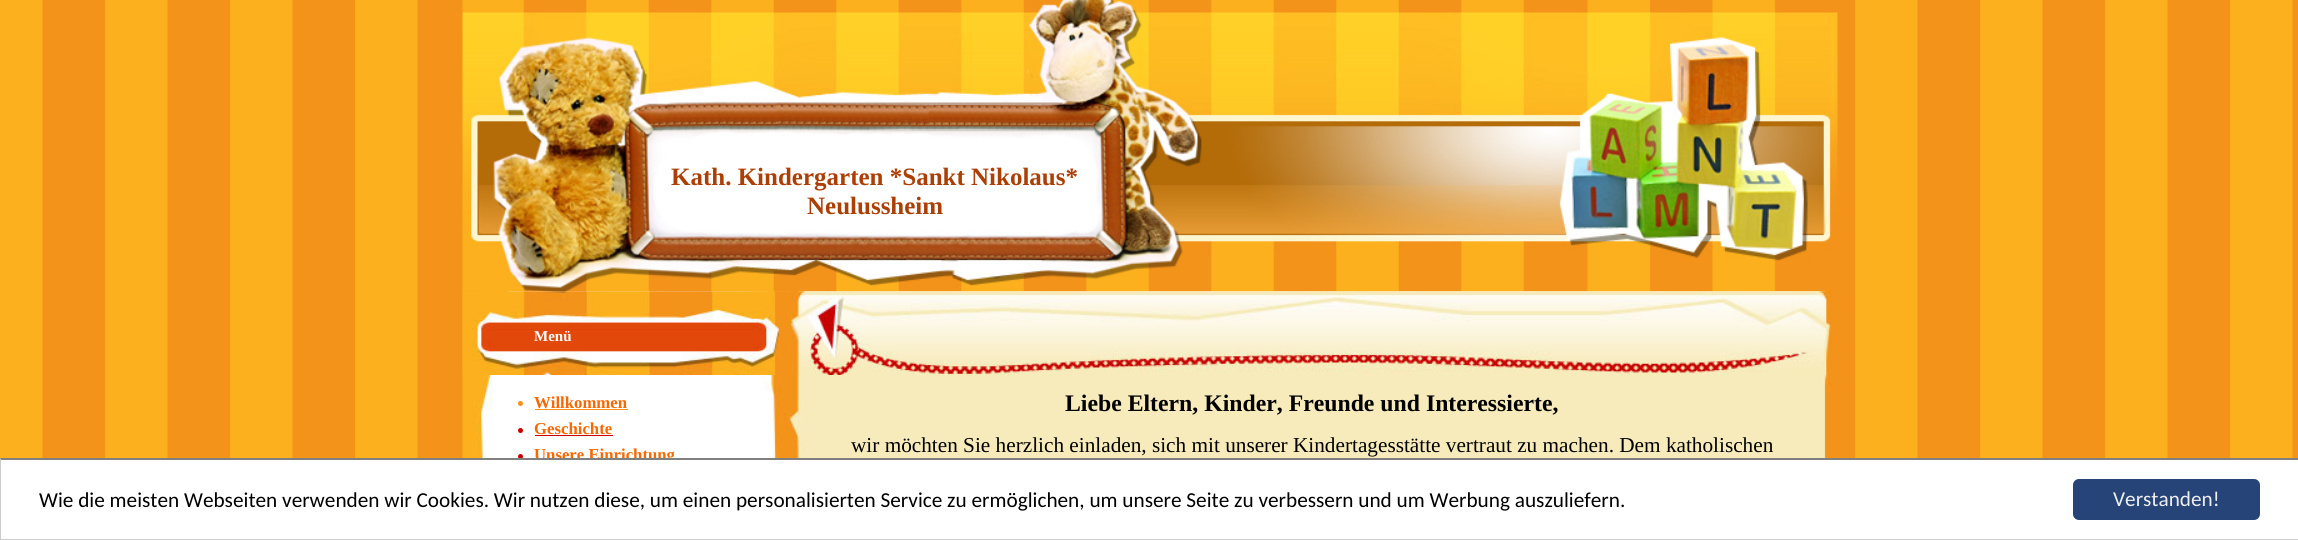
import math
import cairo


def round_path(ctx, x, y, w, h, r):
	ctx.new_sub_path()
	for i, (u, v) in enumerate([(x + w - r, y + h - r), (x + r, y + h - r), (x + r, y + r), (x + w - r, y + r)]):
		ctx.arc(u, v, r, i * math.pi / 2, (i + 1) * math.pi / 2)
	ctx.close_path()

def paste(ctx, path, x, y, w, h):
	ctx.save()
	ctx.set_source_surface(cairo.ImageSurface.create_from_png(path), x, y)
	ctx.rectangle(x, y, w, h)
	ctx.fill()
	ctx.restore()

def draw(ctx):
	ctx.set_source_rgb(1, 1, 1)
	ctx.paint()
	paste(ctx, 'media/1.png', 0, 0, 2298, 460)
	paste(ctx, 'media/2.png', 462, 0, 1376, 292)
	ctx.select_font_face('Liberation Serif', cairo.FONT_SLANT_NORMAL, cairo.FONT_WEIGHT_BOLD)
	ctx.set_font_size(25)
	ctx.set_source_rgb(0.675, 0.247, 0.024)
	ctx.move_to(671, 185)
	ctx.show_text('Kath. Kindergarten *Sankt Nikolaus*')
	ctx.move_to(807, 214)
	ctx.show_text('Neulussheim')
	paste(ctx, 'media/3.png', 462, 291, 1371, 167)
	paste(ctx, 'media/4.png', 462, 291, 317, 84)
	ctx.set_font_size(15)
	ctx.set_source_rgb(1, 1, 1)
	ctx.move_to(534, 341)
	ctx.show_text('Menü')
	ctx.set_source_rgb(0.953, 0.576, 0.102)
	ctx.new_path()
	ctx.arc(520.5, 403.5, 2.5, 0, 2 * math.pi)
	ctx.fill()
	ctx.set_font_size(16.75)
	ctx.set_source_rgb(0.969, 0.404, 0)
	ctx.move_to(534, 408)
	ctx.show_text('Willkommen')
	ctx.set_source_rgb(0.953, 0.576, 0.102)
	ctx.rectangle(535, 409, 93, 1)
	ctx.fill()
	ctx.set_source_rgb(0.784, 0.008, 0.004)
	ctx.arc(520.5, 430.5, 2.5, 0, 2 * math.pi)
	ctx.fill()
	ctx.set_source_rgb(0.969, 0.404, 0)
	ctx.move_to(534, 434)
	ctx.show_text('Geschichte')
	ctx.set_source_rgb(0.784, 0.008, 0.004)
	ctx.rectangle(535, 435, 78, 1)
	ctx.fill()
	ctx.arc(520.5, 456.5, 2.5, 0, 2 * math.pi)
	ctx.fill()
	ctx.set_source_rgb(0.969, 0.404, 0)
	ctx.move_to(534, 460)
	ctx.show_text('Unsere Einrichtung')
	paste(ctx, 'media/5.png', 790, 291, 1042, 84)
	ctx.set_font_size(23.75)
	ctx.set_source_rgb(0, 0, 0)
	ctx.move_to(1065, 411)
	ctx.show_text('Liebe Eltern, Kinder, Freunde und Interessierte,')
	ctx.select_font_face('Liberation Serif')
	ctx.set_font_size(21.25)
	ctx.move_to(851, 452)
	ctx.show_text('wir möchten Sie herzlich einladen, sich mit unserer Kindertagesstätte vertraut zu machen. Dem katholischen')
	ctx.set_source_rgb(1, 1, 1)
	ctx.rectangle(539, 460, 136, 4)
	ctx.fill()
	ctx.set_source_rgb(0.502, 0.502, 0.502)
	ctx.new_path()
	ctx.move_to(0, 458)
	ctx.line_to(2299, 458)
	ctx.line_to(2298, 460)
	ctx.line_to(1, 460)
	ctx.close_path()
	ctx.fill()
	ctx.set_source_rgb(0.8, 0.8, 0.8)
	ctx.rectangle(0, 539, 2298, 1)
	ctx.fill()
	ctx.new_path()
	ctx.move_to(0, 540)
	ctx.line_to(0, 458)
	ctx.line_to(1, 460)
	ctx.line_to(1, 539)
	ctx.close_path()
	ctx.fill()
	ctx.select_font_face('Carlito')
	ctx.set_source_rgb(0, 0, 0)
	ctx.move_to(39, 507)
	ctx.show_text('Wie die meisten Webseiten verwenden wir Cookies. Wir nutzen diese, um einen personalisierten Service zu ermöglichen, um unsere Seite zu verbessern und um Werbung auszuliefern.')
	ctx.set_source_rgb(0.153, 0.267, 0.475)
	round_path(ctx, 2073, 479, 187, 41, 6)
	ctx.fill()
	ctx.set_source_rgb(0.933, 0.933, 0.933)
	ctx.move_to(2113, 506)
	ctx.show_text('Verstanden!')


surface = cairo.ImageSurface(cairo.FORMAT_RGB24, 2298, 540)
ctx = cairo.Context(surface)
options = cairo.FontOptions()
options.set_hint_metrics(cairo.HINT_METRICS_OFF)
options.set_hint_style(cairo.HINT_STYLE_NONE)
ctx.set_font_options(options)
ctx.set_miter_limit(4)
draw(ctx)
surface.write_to_png('image.png')
